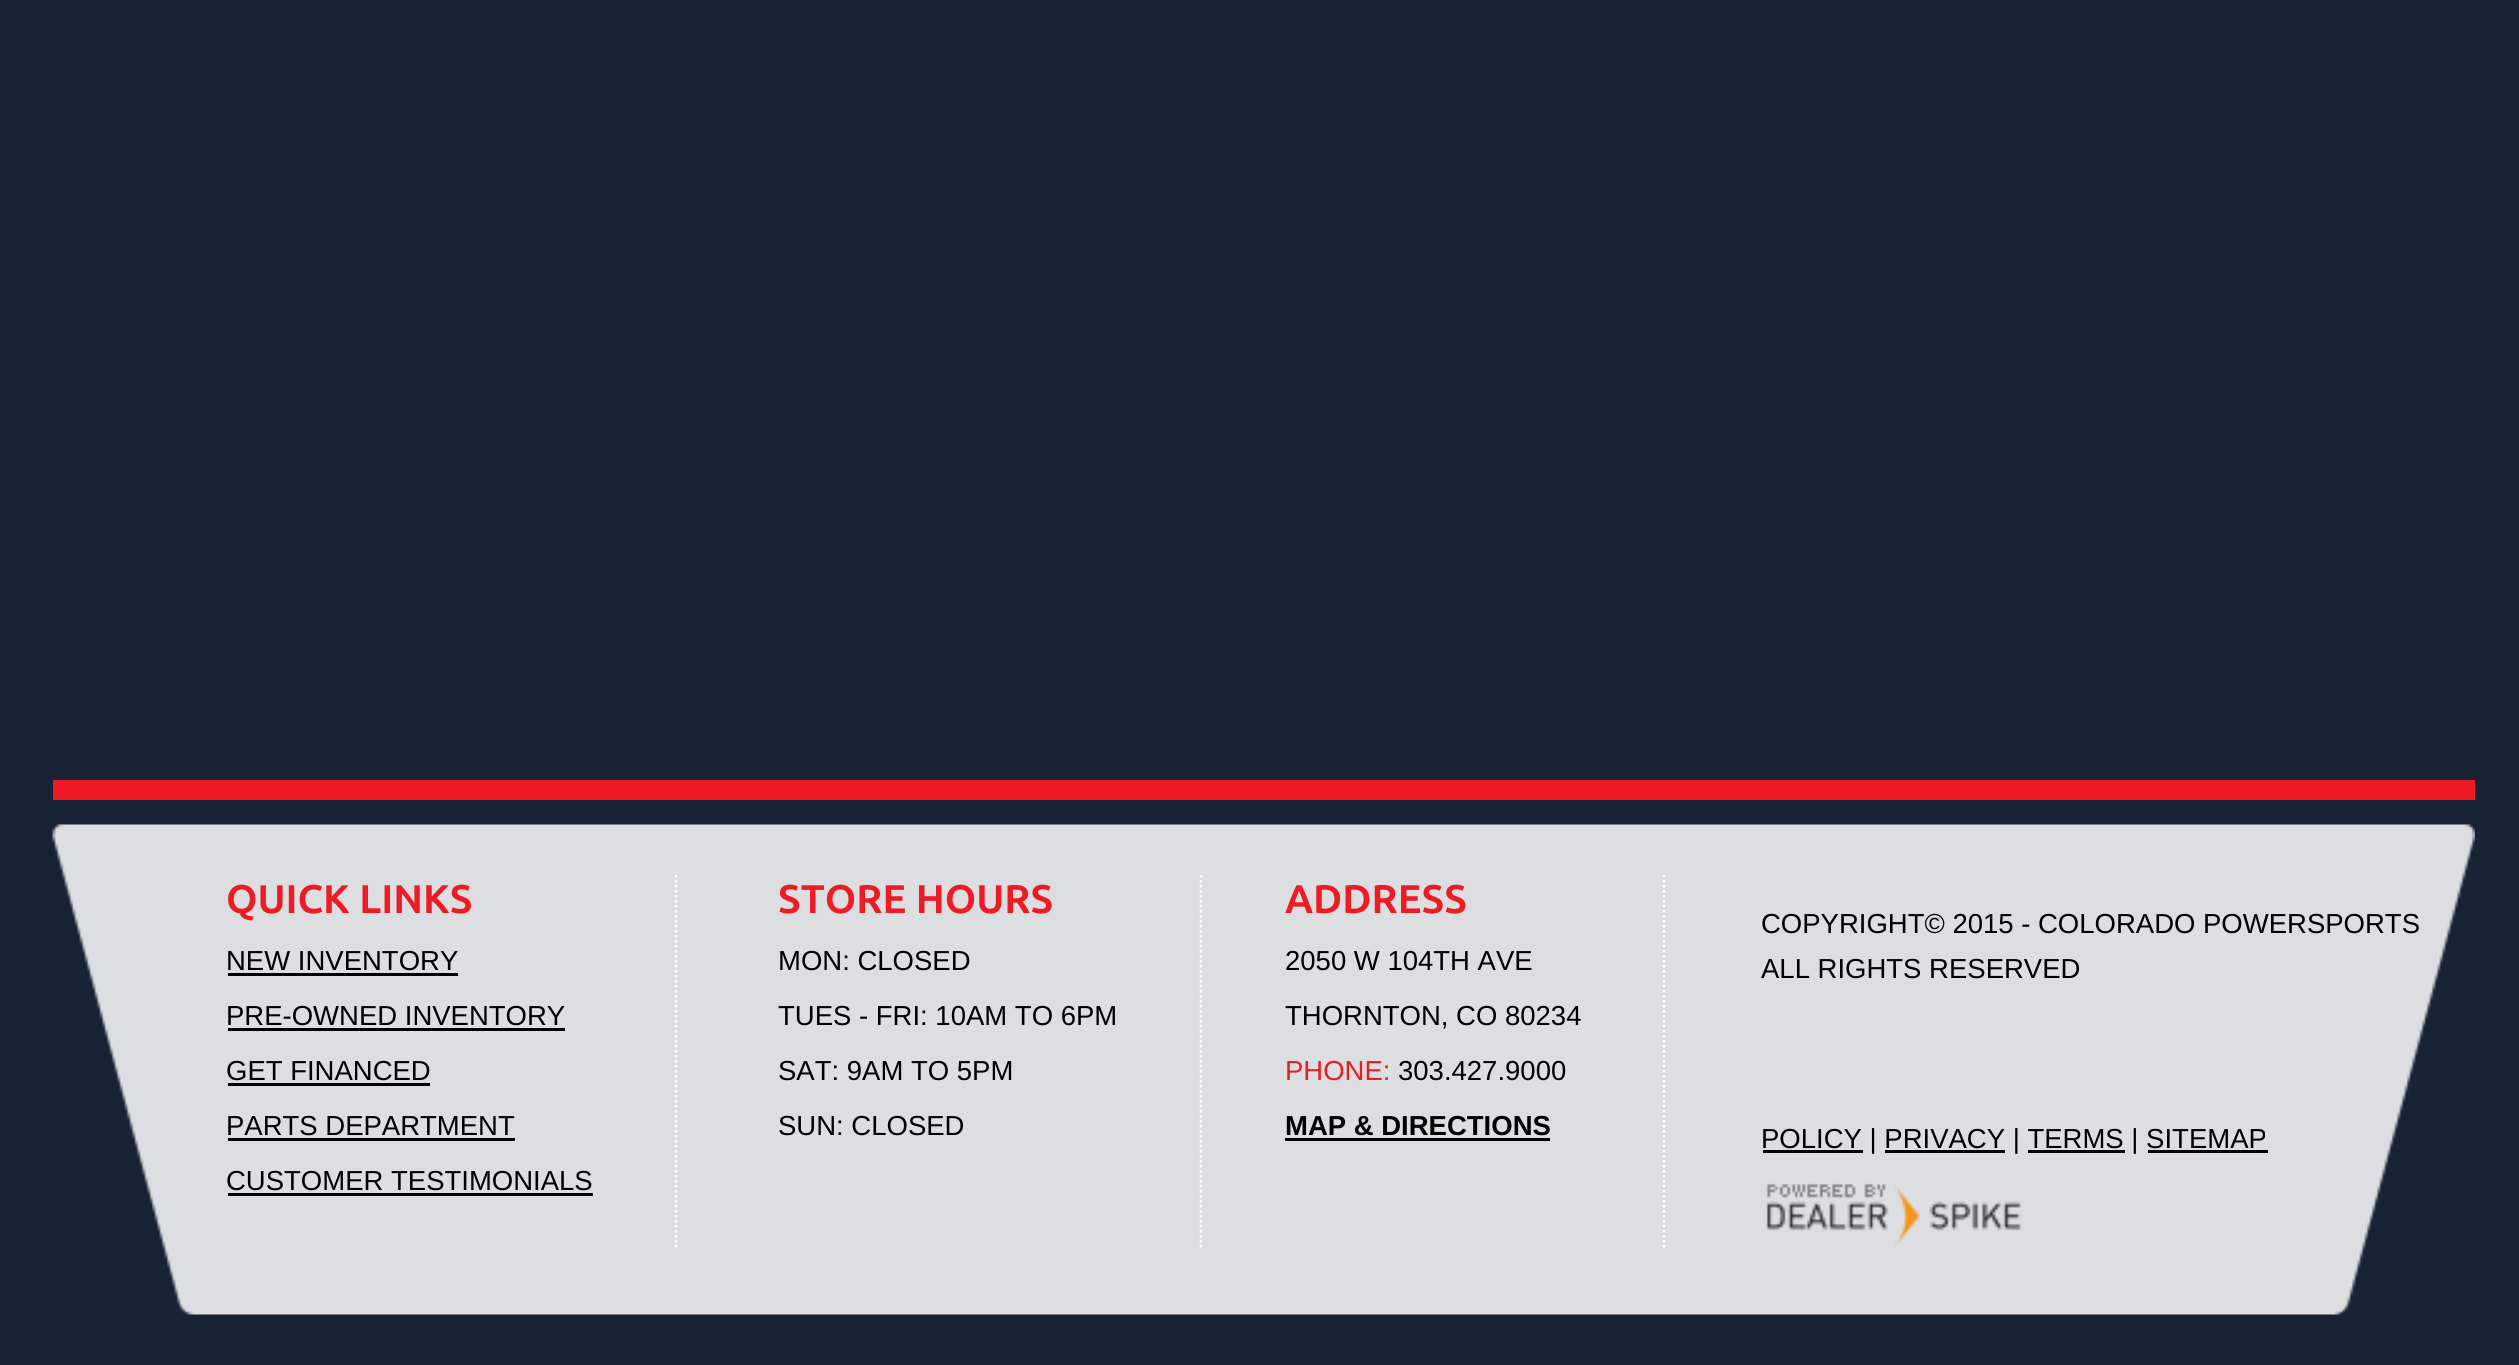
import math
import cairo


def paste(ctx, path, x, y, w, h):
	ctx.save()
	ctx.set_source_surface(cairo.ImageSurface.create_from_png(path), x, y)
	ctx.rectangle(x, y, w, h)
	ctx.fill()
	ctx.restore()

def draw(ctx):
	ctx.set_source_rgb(0.094, 0.133, 0.208)
	ctx.paint()
	paste(ctx, 'media/1.png', 52, 824, 2423, 491)
	ctx.set_source_rgb(0.929, 0.11, 0.141)
	ctx.rectangle(53, 780, 2422, 20)
	ctx.fill()
	ctx.new_path()
	ctx.move_to(676, 875)
	ctx.line_to(676, 1250)
	ctx.set_source_rgb(1, 1, 1)
	ctx.set_line_width(2.5)
	ctx.set_dash([2.5, 2.5])
	ctx.stroke()
	ctx.select_font_face('Ubuntu', cairo.FONT_SLANT_NORMAL, cairo.FONT_WEIGHT_BOLD)
	ctx.set_font_size(40)
	ctx.set_source_rgb(0.929, 0.11, 0.141)
	ctx.move_to(226, 913)
	ctx.show_text('QUICK LINKS')
	ctx.select_font_face('Liberation Sans')
	ctx.set_font_size(27.5)
	ctx.set_source_rgb(0, 0, 0)
	ctx.move_to(226, 970)
	ctx.show_text('NEW INVENTORY')
	ctx.rectangle(228, 973, 230, 3)
	ctx.fill()
	ctx.move_to(226, 1025)
	ctx.show_text('PRE-OWNED INVENTORY')
	ctx.rectangle(228, 1028, 337, 3)
	ctx.fill()
	ctx.move_to(226, 1080)
	ctx.show_text('GET FINANCED')
	ctx.rectangle(228, 1083, 202, 3)
	ctx.fill()
	ctx.move_to(226, 1135)
	ctx.show_text('PARTS DEPARTMENT')
	ctx.rectangle(228, 1138, 287, 3)
	ctx.fill()
	ctx.move_to(226, 1190)
	ctx.show_text('CUSTOMER TESTIMONIALS')
	ctx.rectangle(228, 1193, 365, 3)
	ctx.fill()
	ctx.new_path()
	ctx.move_to(1201, 875)
	ctx.line_to(1201, 1250)
	ctx.set_source_rgb(1, 1, 1)
	ctx.stroke()
	ctx.select_font_face('Ubuntu', cairo.FONT_SLANT_NORMAL, cairo.FONT_WEIGHT_BOLD)
	ctx.set_font_size(40)
	ctx.set_source_rgb(0.929, 0.11, 0.141)
	ctx.move_to(778, 913)
	ctx.show_text('STORE HOURS')
	ctx.select_font_face('Liberation Sans')
	ctx.set_font_size(27.5)
	ctx.set_source_rgb(0, 0, 0)
	for x, y, s in [
		(778, 970, 'MON: CLOSED'),
		(778, 1025, 'TUES - FRI: 10AM TO 6PM'),
		(778, 1080, 'SAT: 9AM TO 5PM'),
		(778, 1135, 'SUN: CLOSED'),
	]:
		ctx.move_to(x, y)
		ctx.show_text(s)
	ctx.new_path()
	ctx.move_to(1664, 875)
	ctx.line_to(1664, 1250)
	ctx.set_source_rgb(1, 1, 1)
	ctx.stroke()
	ctx.select_font_face('Ubuntu', cairo.FONT_SLANT_NORMAL, cairo.FONT_WEIGHT_BOLD)
	ctx.set_font_size(40)
	ctx.set_source_rgb(0.929, 0.11, 0.141)
	ctx.move_to(1285, 913)
	ctx.show_text('ADDRESS')
	ctx.select_font_face('Liberation Sans')
	ctx.set_font_size(27.5)
	ctx.set_source_rgb(0, 0, 0)
	ctx.move_to(1285, 970)
	ctx.show_text('2050 W 104TH AVE')
	ctx.move_to(1285, 1025)
	ctx.show_text('THORNTON, CO 80234')
	ctx.set_source_rgb(0.929, 0.11, 0.141)
	ctx.move_to(1285, 1080)
	ctx.show_text('PHONE:')
	ctx.set_source_rgb(0, 0, 0)
	ctx.move_to(1398, 1080)
	ctx.show_text('303.427.9000')
	ctx.select_font_face('Liberation Sans', cairo.FONT_SLANT_NORMAL, cairo.FONT_WEIGHT_BOLD)
	ctx.move_to(1285, 1135)
	ctx.show_text('MAP & DIRECTIONS')
	ctx.rectangle(1285, 1138, 265, 3)
	ctx.fill()
	ctx.select_font_face('Liberation Sans')
	ctx.move_to(1761, 933)
	ctx.show_text('COPYRIGHT© 2015 - COLORADO POWERSPORTS')
	ctx.move_to(1761, 978)
	ctx.show_text('ALL RIGHTS RESERVED')
	ctx.rectangle(1763, 1150, 100, 3)
	ctx.fill()
	ctx.move_to(1761, 1148)
	ctx.show_text('POLICY | PRIVACY | TERMS | SITEMAP')
	ctx.rectangle(1885, 1150, 120, 3)
	ctx.rectangle(2028, 1150, 97, 3)
	ctx.rectangle(2148, 1150, 120, 3)
	ctx.fill()
	paste(ctx, 'media/2.png', 1766, 1183, 255, 64)


surface = cairo.ImageSurface(cairo.FORMAT_RGB24, 2519, 1365)
ctx = cairo.Context(surface)
options = cairo.FontOptions()
options.set_hint_metrics(cairo.HINT_METRICS_OFF)
options.set_hint_style(cairo.HINT_STYLE_NONE)
ctx.set_font_options(options)
ctx.set_miter_limit(4)
draw(ctx)
surface.write_to_png('image.png')
